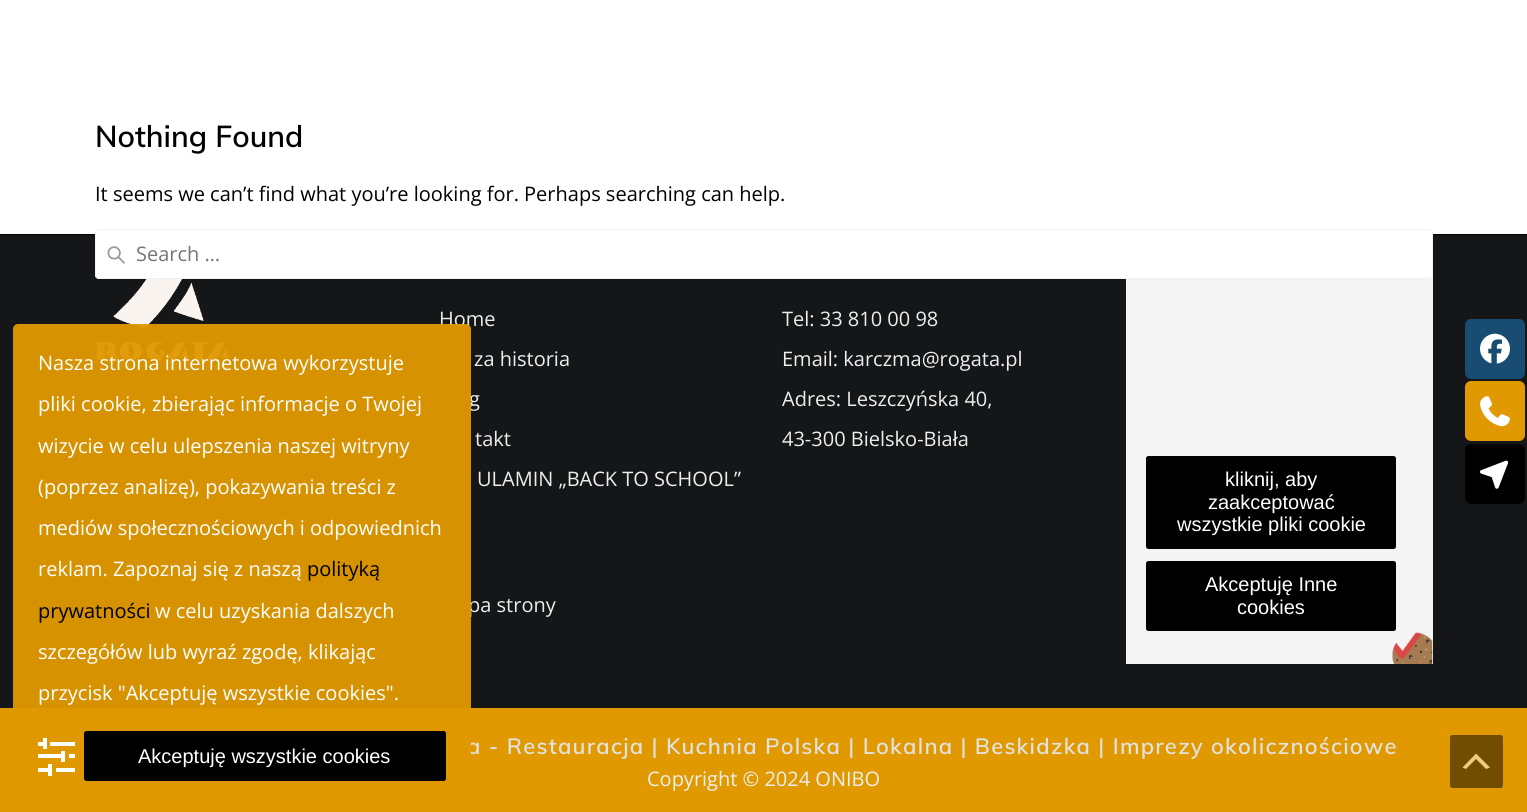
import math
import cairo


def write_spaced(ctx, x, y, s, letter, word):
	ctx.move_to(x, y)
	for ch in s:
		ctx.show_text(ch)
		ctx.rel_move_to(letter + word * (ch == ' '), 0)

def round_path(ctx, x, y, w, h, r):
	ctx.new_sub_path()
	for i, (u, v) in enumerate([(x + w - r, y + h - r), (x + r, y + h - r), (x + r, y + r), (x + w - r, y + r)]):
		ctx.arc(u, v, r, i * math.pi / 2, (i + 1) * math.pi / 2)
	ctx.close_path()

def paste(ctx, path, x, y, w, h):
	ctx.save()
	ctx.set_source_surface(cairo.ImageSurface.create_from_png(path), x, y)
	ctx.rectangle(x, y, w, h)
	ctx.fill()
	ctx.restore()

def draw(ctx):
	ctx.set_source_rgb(1, 1, 1)
	ctx.paint()
	ctx.select_font_face('Muli SemiBold')
	ctx.set_font_size(30)
	ctx.set_source_rgb(0, 0, 0)
	ctx.move_to(95, 147)
	ctx.show_text('Nothing Found')
	ctx.select_font_face('Open Sans')
	ctx.set_font_size(20)
	ctx.move_to(95, 201)
	ctx.show_text('It seems we can’t find what you’re looking for. Perhaps searching can help.')
	ctx.set_source_rgb(0.082, 0.086, 0.09)
	ctx.rectangle(0, 235, 1527, 473)
	ctx.fill()
	ctx.set_source_rgb(0, 0, 0)
	ctx.rectangle(0, 234, 1527, 1)
	ctx.fill()
	ctx.set_source_rgb(0.957, 0.957, 0.957)
	ctx.rectangle(1126, 275, 307, 389)
	ctx.fill()
	ctx.set_source_rgb(1, 1, 1)
	round_path(ctx, 95, 229, 1338, 50, 4)
	ctx.fill()
	paste(ctx, 'media/1.png', 107, 246, 18, 18)
	round_path(ctx, 95.5, 229.5, 1337, 49, 3.5)
	ctx.set_source_rgb(0.945, 0.945, 0.945)
	ctx.set_line_width(1)
	ctx.stroke()
	ctx.set_source_rgb(0.459, 0.459, 0.459)
	ctx.move_to(136, 261)
	ctx.show_text('Search …')
	paste(ctx, 'media/2.png', 96, 279, 133, 82)
	ctx.set_source_rgb(0.933, 0.933, 0.933)
	for x, y, s in [
		(439, 326, 'Home'),
		(474, 366, 'za historia'),
		(469, 406, 'g'),
		(475, 446, 'takt'),
		(477, 486, 'ULAMIN „BACK TO SCHOOL”'),
		(468, 612, 'pa strony'),
		(782, 326, 'Tel: 33 810 00 98'),
		(782, 366, 'Email: karczma@rogata.pl'),
		(782, 406, 'Adres: Leszczyńska 40,'),
		(782, 446, '43-300 Bielsko-Biała'),
	]:
		ctx.move_to(x, y)
		ctx.show_text(s)
	ctx.set_source_rgb(0, 0, 0)
	round_path(ctx, 1146, 456, 250, 93, 2.5)
	ctx.fill()
	ctx.select_font_face('Liberation Sans')
	ctx.set_source_rgb(1, 1, 1)
	for x, y, s in [
		(1225, 486, 'kliknij, aby'),
		(1208, 509, 'zaakceptować'),
		(1177, 531, 'wszystkie pliki cookie'),
	]:
		ctx.move_to(x, y)
		ctx.show_text(s)
	ctx.set_source_rgb(0, 0, 0)
	round_path(ctx, 1146, 561, 250, 70, 2.5)
	ctx.fill()
	ctx.set_source_rgb(1, 1, 1)
	ctx.move_to(1205, 591)
	ctx.show_text('Akceptuję Inne')
	ctx.move_to(1237, 614)
	ctx.show_text('cookies')
	paste(ctx, 'media/3.png', 1392, 632, 41, 32)
	ctx.set_source_rgb(0.878, 0.6, 0)
	ctx.rectangle(0, 708, 1527, 104)
	ctx.fill()
	ctx.select_font_face('Muli SemiBold')
	ctx.set_font_size(22)
	ctx.set_source_rgb(0.886, 0.886, 0.886)
	write_spaced(ctx, 467, 754, 'a - Restauracja | Kuchnia Polska | Lokalna | Beskidzka | Imprezy okolicznościowe', 1.25, 0)
	ctx.select_font_face('Open Sans')
	ctx.set_font_size(20)
	ctx.set_source_rgb(0.933, 0.933, 0.933)
	ctx.move_to(647, 786)
	ctx.show_text('Copyright © 2024 ONIBO')
	ctx.set_source_rgb(0.094, 0.298, 0.447)
	round_path(ctx, 1465, 319, 60, 60, 6)
	ctx.fill()
	paste(ctx, 'media/4.png', 1480, 333, 30, 31)
	ctx.set_source_rgb(0.878, 0.6, 0)
	round_path(ctx, 1465, 381, 60, 60, 6)
	ctx.fill()
	paste(ctx, 'media/5.png', 1480, 396, 30, 31)
	ctx.set_source_rgb(0, 0, 0)
	round_path(ctx, 1465, 444, 60, 60, 6)
	ctx.fill()
	paste(ctx, 'media/6.png', 1480, 460, 29, 29)
	ctx.set_source_rgba(0.878, 0.6, 0, 0.95)
	round_path(ctx, 13, 324, 458, 476, 5)
	ctx.fill()
	ctx.set_source_rgb(1, 1, 1)
	for x, y, s in [
		(38, 370, 'Nasza strona internetowa wykorzystuje'),
		(38, 411, 'pliki cookie, zbierając informacje o Twojej'),
		(38, 453, 'wizycie w celu ulepszenia naszej witryny'),
		(38, 494, '(poprzez analizę), pokazywania treści z'),
		(38, 535, 'mediów społecznościowych i odpowiednich'),
		(38, 576, 'reklam. Zapoznaj się z naszą'),
	]:
		ctx.move_to(x, y)
		ctx.show_text(s)
	ctx.set_source_rgb(0, 0, 0)
	ctx.move_to(307, 576)
	ctx.show_text('polityką')
	ctx.move_to(38, 618)
	ctx.show_text('prywatności')
	ctx.set_source_rgb(1, 1, 1)
	for x, y, s in [
		(155, 618, 'w celu uzyskania dalszych'),
		(38, 659, 'szczegółów lub wyraź zgodę, klikając'),
		(38, 700, 'przycisk "Akceptuję wszystkie cookies".'),
	]:
		ctx.move_to(x, y)
		ctx.show_text(s)
	paste(ctx, 'media/7.png', 38, 738, 37, 38)
	ctx.set_source_rgb(0, 0, 0)
	round_path(ctx, 84, 731, 362, 50, 2.5)
	ctx.fill()
	ctx.select_font_face('Liberation Sans')
	ctx.set_source_rgb(1, 1, 1)
	ctx.move_to(138, 763)
	ctx.show_text('Akceptuję wszystkie cookies')
	ctx.set_source_rgb(0.439, 0.302, 0)
	round_path(ctx, 1450, 735, 53, 53, 2.5)
	ctx.fill()
	ctx.set_source_rgb(0.941, 0.8, 0.502)
	ctx.new_path()
	ctx.move_to(1486, 769)
	ctx.line_to(1476, 759)
	ctx.line_to(1466, 769)
	ctx.line_to(1462.5, 767.5)
	ctx.line_to(1476, 753.5)
	ctx.line_to(1490, 767.5)
	ctx.close_path()
	ctx.fill()


surface = cairo.ImageSurface(cairo.FORMAT_RGB24, 1527, 812)
ctx = cairo.Context(surface)
options = cairo.FontOptions()
options.set_hint_metrics(cairo.HINT_METRICS_OFF)
options.set_hint_style(cairo.HINT_STYLE_NONE)
ctx.set_font_options(options)
ctx.set_miter_limit(4)
draw(ctx)
surface.write_to_png('image.png')
